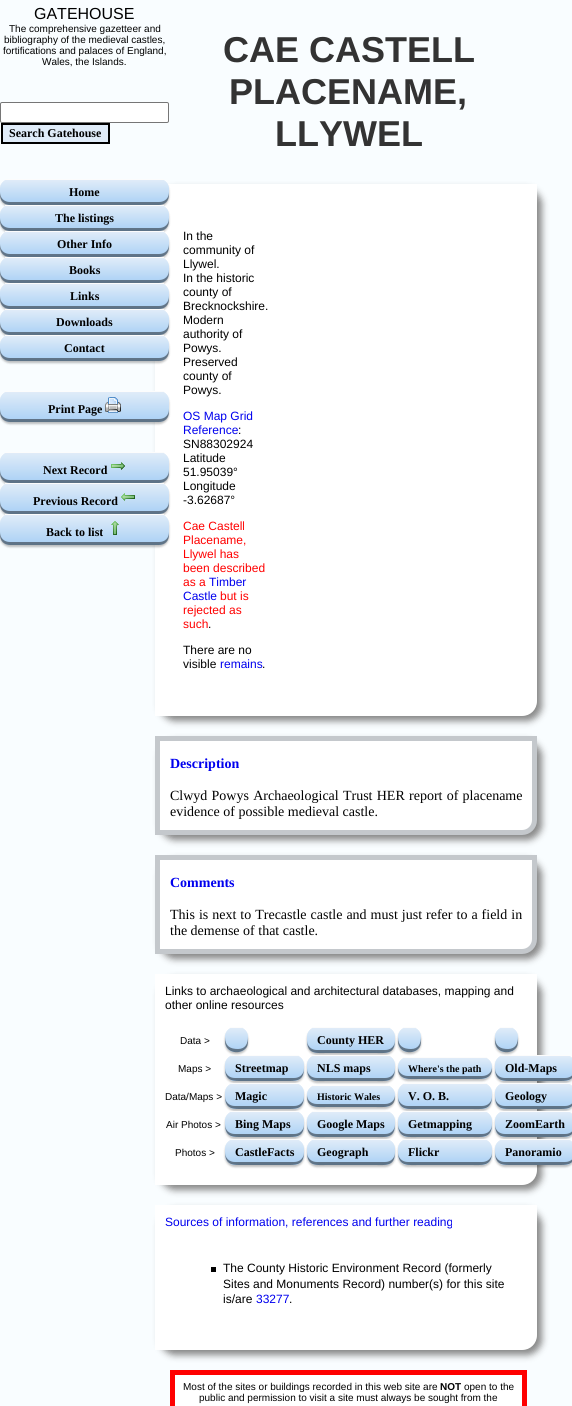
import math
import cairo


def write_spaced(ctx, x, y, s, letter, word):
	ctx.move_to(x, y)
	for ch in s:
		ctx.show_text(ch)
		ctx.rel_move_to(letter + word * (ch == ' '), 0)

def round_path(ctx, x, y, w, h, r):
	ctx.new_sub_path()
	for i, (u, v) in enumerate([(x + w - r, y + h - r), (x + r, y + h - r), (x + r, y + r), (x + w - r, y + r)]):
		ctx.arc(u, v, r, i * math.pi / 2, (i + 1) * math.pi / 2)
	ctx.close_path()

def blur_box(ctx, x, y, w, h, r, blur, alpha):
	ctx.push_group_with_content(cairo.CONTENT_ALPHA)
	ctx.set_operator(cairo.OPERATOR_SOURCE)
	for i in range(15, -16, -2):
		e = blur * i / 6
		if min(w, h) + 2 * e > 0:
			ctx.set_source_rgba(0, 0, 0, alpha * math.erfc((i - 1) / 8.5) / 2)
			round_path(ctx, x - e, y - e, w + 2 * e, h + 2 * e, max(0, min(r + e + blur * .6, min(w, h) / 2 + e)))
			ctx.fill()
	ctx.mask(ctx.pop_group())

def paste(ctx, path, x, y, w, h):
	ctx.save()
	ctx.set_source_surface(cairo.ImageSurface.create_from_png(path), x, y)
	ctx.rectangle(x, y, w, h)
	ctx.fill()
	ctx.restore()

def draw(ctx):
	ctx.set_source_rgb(0.976, 0.992, 1)
	ctx.paint()
	ctx.select_font_face('Liberation Sans')
	ctx.set_font_size(16)
	ctx.set_source_rgb(0, 0, 0)
	ctx.move_to(34, 19)
	ctx.show_text('GATEHOUSE')
	ctx.set_font_size(10)
	for x, y, s in [
		(9, 32, 'The comprehensive gazetteer and'),
		(4, 43, 'bibliography of the medieval castles,'),
		(3, 54, 'fortifications and palaces of England,'),
		(42, 65, 'Wales, the Islands.'),
	]:
		ctx.move_to(x, y)
		ctx.show_text(s)
	ctx.set_source_rgb(1, 1, 1)
	round_path(ctx, 0.5, 102.5, 168, 20, 1.5)
	ctx.fill_preserve()
	ctx.set_source_rgb(0.463, 0.463, 0.463)
	ctx.set_line_width(1)
	ctx.stroke()
	ctx.set_source_rgb(0.878, 0.925, 0.973)
	ctx.rectangle(2, 124, 107, 19)
	ctx.fill_preserve()
	ctx.set_source_rgb(0, 0, 0)
	ctx.set_line_width(2)
	ctx.stroke()
	ctx.select_font_face('Liberation Serif', cairo.FONT_SLANT_NORMAL, cairo.FONT_WEIGHT_BOLD)
	ctx.set_font_size(12)
	ctx.move_to(9, 137)
	ctx.show_text('Search Gatehouse')
	ctx.set_source_rgb(0.533, 0.533, 0.533)
	blur_box(ctx, 160, 189, 382, 532, 15, 3.5, 1)
	ctx.set_source_rgb(1, 1, 1)
	ctx.new_path()
	ctx.move_to(155, 184)
	ctx.line_to(537, 184)
	ctx.line_to(537, 701)
	ctx.curve_to(537, 709.5, 530.5, 716, 522, 716)
	ctx.line_to(155, 716)
	ctx.close_path()
	ctx.fill()
	ctx.set_source_rgb(0, 0, 0)
	blur_box(ctx, 0, 181, 169, 26, 10, 1, 0.25)
	ctx.set_source_rgb(0.878, 0.925, 0.973)
	round_path(ctx, 0, 179, 169, 26, 10)
	ctx.fill()
	ctx.save()
	round_path(ctx, 0, 179, 169, 26, 10)
	ctx.clip()
	gradient = cairo.LinearGradient(0, 180, 0, 205)
	gradient.add_color_stop_rgba(0, 0.878, 0.925, 0.973, 1)
	gradient.add_color_stop_rgba(1, 0.663, 0.816, 0.961, 1)
	ctx.set_source(gradient)
	ctx.new_path()
	ctx.move_to(0, 180)
	ctx.line_to(169, 180)
	ctx.line_to(169, 195)
	ctx.curve_to(169, 200.5, 164.5, 205, 159, 205)
	ctx.line_to(10, 205)
	ctx.curve_to(4.5, 205, 0, 200.5, 0, 195)
	ctx.close_path()
	ctx.fill()
	ctx.restore()
	ctx.set_source_rgba(0, 0, 0, 0.45)
	ctx.new_path()
	ctx.move_to(0, 192)
	ctx.line_to(0, 195)
	ctx.curve_to(0, 201, 4, 205, 10, 205)
	ctx.line_to(159, 205)
	ctx.curve_to(165, 205, 169, 201, 169, 195)
	ctx.line_to(169, 192)
	ctx.curve_to(169, 198, 165, 202, 159, 202)
	ctx.line_to(10, 202)
	ctx.curve_to(4, 202, 0, 198, 0, 192)
	ctx.close_path()
	ctx.fill()
	ctx.set_source_rgb(0.988, 0.988, 0.988)
	ctx.rectangle(5, 179, 159, 1)
	ctx.fill()
	ctx.set_source_rgb(0, 0, 0)
	ctx.move_to(69, 196)
	ctx.show_text('Home')
	ctx.set_source_rgb(0, 0, 0)
	blur_box(ctx, 0, 207, 169, 26, 10, 1, 0.25)
	ctx.set_source_rgb(0.878, 0.925, 0.973)
	round_path(ctx, 0, 205, 169, 26, 10)
	ctx.fill()
	ctx.save()
	round_path(ctx, 0, 205, 169, 26, 10)
	ctx.clip()
	gradient = cairo.LinearGradient(0, 206, 0, 231)
	gradient.add_color_stop_rgba(0, 0.878, 0.925, 0.973, 1)
	gradient.add_color_stop_rgba(1, 0.663, 0.816, 0.961, 1)
	ctx.set_source(gradient)
	ctx.new_path()
	ctx.move_to(0, 206)
	ctx.line_to(169, 206)
	ctx.line_to(169, 221)
	ctx.curve_to(169, 226.5, 164.5, 231, 159, 231)
	ctx.line_to(10, 231)
	ctx.curve_to(4.5, 231, 0, 226.5, 0, 221)
	ctx.close_path()
	ctx.fill()
	ctx.restore()
	ctx.set_source_rgba(0, 0, 0, 0.45)
	ctx.new_path()
	ctx.move_to(0, 218)
	ctx.line_to(0, 221)
	ctx.curve_to(0, 227, 4, 231, 10, 231)
	ctx.line_to(159, 231)
	ctx.curve_to(165, 231, 169, 227, 169, 221)
	ctx.line_to(169, 218)
	ctx.curve_to(169, 224, 165, 228, 159, 228)
	ctx.line_to(10, 228)
	ctx.curve_to(4, 228, 0, 224, 0, 218)
	ctx.close_path()
	ctx.fill()
	ctx.set_source_rgb(0.988, 0.988, 0.988)
	ctx.rectangle(5, 205, 159, 1)
	ctx.fill()
	ctx.set_source_rgb(0, 0, 0)
	ctx.move_to(55, 222)
	ctx.show_text('The listings')
	ctx.set_source_rgb(0, 0, 0)
	blur_box(ctx, 0, 233, 169, 26, 10, 1, 0.25)
	ctx.set_source_rgb(0.878, 0.925, 0.973)
	round_path(ctx, 0, 231, 169, 26, 10)
	ctx.fill()
	ctx.save()
	round_path(ctx, 0, 231, 169, 26, 10)
	ctx.clip()
	gradient = cairo.LinearGradient(0, 232, 0, 257)
	gradient.add_color_stop_rgba(0, 0.878, 0.925, 0.973, 1)
	gradient.add_color_stop_rgba(1, 0.663, 0.816, 0.961, 1)
	ctx.set_source(gradient)
	ctx.new_path()
	ctx.move_to(0, 232)
	ctx.line_to(169, 232)
	ctx.line_to(169, 247)
	ctx.curve_to(169, 252.5, 164.5, 257, 159, 257)
	ctx.line_to(10, 257)
	ctx.curve_to(4.5, 257, 0, 252.5, 0, 247)
	ctx.close_path()
	ctx.fill()
	ctx.restore()
	ctx.set_source_rgba(0, 0, 0, 0.45)
	ctx.new_path()
	ctx.move_to(0, 244)
	ctx.line_to(0, 247)
	ctx.curve_to(0, 253, 4, 257, 10, 257)
	ctx.line_to(159, 257)
	ctx.curve_to(165, 257, 169, 253, 169, 247)
	ctx.line_to(169, 244)
	ctx.curve_to(169, 250, 165, 254, 159, 254)
	ctx.line_to(10, 254)
	ctx.curve_to(4, 254, 0, 250, 0, 244)
	ctx.close_path()
	ctx.fill()
	ctx.set_source_rgb(0.988, 0.988, 0.988)
	ctx.rectangle(5, 231, 159, 1)
	ctx.fill()
	ctx.set_source_rgb(0, 0, 0)
	ctx.move_to(57, 248)
	ctx.show_text('Other Info')
	ctx.set_source_rgb(0, 0, 0)
	blur_box(ctx, 0, 259, 169, 26, 10, 1, 0.25)
	ctx.set_source_rgb(0.878, 0.925, 0.973)
	round_path(ctx, 0, 257, 169, 26, 10)
	ctx.fill()
	ctx.save()
	round_path(ctx, 0, 257, 169, 26, 10)
	ctx.clip()
	gradient = cairo.LinearGradient(0, 258, 0, 283)
	gradient.add_color_stop_rgba(0, 0.878, 0.925, 0.973, 1)
	gradient.add_color_stop_rgba(1, 0.663, 0.816, 0.961, 1)
	ctx.set_source(gradient)
	ctx.new_path()
	ctx.move_to(0, 258)
	ctx.line_to(169, 258)
	ctx.line_to(169, 273)
	ctx.curve_to(169, 278.5, 164.5, 283, 159, 283)
	ctx.line_to(10, 283)
	ctx.curve_to(4.5, 283, 0, 278.5, 0, 273)
	ctx.close_path()
	ctx.fill()
	ctx.restore()
	ctx.set_source_rgba(0, 0, 0, 0.45)
	ctx.new_path()
	ctx.move_to(0, 270)
	ctx.line_to(0, 273)
	ctx.curve_to(0, 279, 4, 283, 10, 283)
	ctx.line_to(159, 283)
	ctx.curve_to(165, 283, 169, 279, 169, 273)
	ctx.line_to(169, 270)
	ctx.curve_to(169, 276, 165, 280, 159, 280)
	ctx.line_to(10, 280)
	ctx.curve_to(4, 280, 0, 276, 0, 270)
	ctx.close_path()
	ctx.fill()
	ctx.set_source_rgb(0.988, 0.988, 0.988)
	ctx.rectangle(5, 257, 159, 1)
	ctx.fill()
	ctx.set_source_rgb(0, 0, 0)
	ctx.move_to(69, 274)
	ctx.show_text('Books')
	ctx.set_source_rgb(0, 0, 0)
	blur_box(ctx, 0, 285, 169, 26, 10, 1, 0.25)
	ctx.set_source_rgb(0.878, 0.925, 0.973)
	round_path(ctx, 0, 283, 169, 26, 10)
	ctx.fill()
	ctx.save()
	round_path(ctx, 0, 283, 169, 26, 10)
	ctx.clip()
	gradient = cairo.LinearGradient(0, 284, 0, 309)
	gradient.add_color_stop_rgba(0, 0.878, 0.925, 0.973, 1)
	gradient.add_color_stop_rgba(1, 0.663, 0.816, 0.961, 1)
	ctx.set_source(gradient)
	ctx.new_path()
	ctx.move_to(0, 284)
	ctx.line_to(169, 284)
	ctx.line_to(169, 299)
	ctx.curve_to(169, 304.5, 164.5, 309, 159, 309)
	ctx.line_to(10, 309)
	ctx.curve_to(4.5, 309, 0, 304.5, 0, 299)
	ctx.close_path()
	ctx.fill()
	ctx.restore()
	ctx.set_source_rgba(0, 0, 0, 0.45)
	ctx.new_path()
	ctx.move_to(0, 296)
	ctx.line_to(0, 299)
	ctx.curve_to(0, 305, 4, 309, 10, 309)
	ctx.line_to(159, 309)
	ctx.curve_to(165, 309, 169, 305, 169, 299)
	ctx.line_to(169, 296)
	ctx.curve_to(169, 302, 165, 306, 159, 306)
	ctx.line_to(10, 306)
	ctx.curve_to(4, 306, 0, 302, 0, 296)
	ctx.close_path()
	ctx.fill()
	ctx.set_source_rgb(0.988, 0.988, 0.988)
	ctx.rectangle(5, 283, 159, 1)
	ctx.fill()
	ctx.set_source_rgb(0, 0, 0)
	ctx.move_to(70, 300)
	ctx.show_text('Links')
	ctx.set_source_rgb(0, 0, 0)
	blur_box(ctx, 0, 311, 169, 26, 10, 1, 0.25)
	ctx.set_source_rgb(0.878, 0.925, 0.973)
	round_path(ctx, 0, 309, 169, 26, 10)
	ctx.fill()
	ctx.save()
	round_path(ctx, 0, 309, 169, 26, 10)
	ctx.clip()
	gradient = cairo.LinearGradient(0, 310, 0, 335)
	gradient.add_color_stop_rgba(0, 0.878, 0.925, 0.973, 1)
	gradient.add_color_stop_rgba(1, 0.663, 0.816, 0.961, 1)
	ctx.set_source(gradient)
	ctx.new_path()
	ctx.move_to(0, 310)
	ctx.line_to(169, 310)
	ctx.line_to(169, 325)
	ctx.curve_to(169, 330.5, 164.5, 335, 159, 335)
	ctx.line_to(10, 335)
	ctx.curve_to(4.5, 335, 0, 330.5, 0, 325)
	ctx.close_path()
	ctx.fill()
	ctx.restore()
	ctx.set_source_rgba(0, 0, 0, 0.45)
	ctx.new_path()
	ctx.move_to(0, 322)
	ctx.line_to(0, 325)
	ctx.curve_to(0, 331, 4, 335, 10, 335)
	ctx.line_to(159, 335)
	ctx.curve_to(165, 335, 169, 331, 169, 325)
	ctx.line_to(169, 322)
	ctx.curve_to(169, 328, 165, 332, 159, 332)
	ctx.line_to(10, 332)
	ctx.curve_to(4, 332, 0, 328, 0, 322)
	ctx.close_path()
	ctx.fill()
	ctx.set_source_rgb(0.988, 0.988, 0.988)
	ctx.rectangle(5, 309, 159, 1)
	ctx.fill()
	ctx.set_source_rgb(0, 0, 0)
	ctx.move_to(56, 326)
	ctx.show_text('Downloads')
	ctx.set_source_rgb(0, 0, 0)
	blur_box(ctx, 0, 337, 169, 26, 10, 1, 0.25)
	ctx.set_source_rgb(0.878, 0.925, 0.973)
	round_path(ctx, 0, 335, 169, 26, 10)
	ctx.fill()
	ctx.save()
	round_path(ctx, 0, 335, 169, 26, 10)
	ctx.clip()
	gradient = cairo.LinearGradient(0, 336, 0, 361)
	gradient.add_color_stop_rgba(0, 0.878, 0.925, 0.973, 1)
	gradient.add_color_stop_rgba(1, 0.663, 0.816, 0.961, 1)
	ctx.set_source(gradient)
	ctx.new_path()
	ctx.move_to(0, 336)
	ctx.line_to(169, 336)
	ctx.line_to(169, 351)
	ctx.curve_to(169, 356.5, 164.5, 361, 159, 361)
	ctx.line_to(10, 361)
	ctx.curve_to(4.5, 361, 0, 356.5, 0, 351)
	ctx.close_path()
	ctx.fill()
	ctx.restore()
	ctx.set_source_rgba(0, 0, 0, 0.45)
	ctx.new_path()
	ctx.move_to(0, 348)
	ctx.line_to(0, 351)
	ctx.curve_to(0, 357, 4, 361, 10, 361)
	ctx.line_to(159, 361)
	ctx.curve_to(165, 361, 169, 357, 169, 351)
	ctx.line_to(169, 348)
	ctx.curve_to(169, 354, 165, 358, 159, 358)
	ctx.line_to(10, 358)
	ctx.curve_to(4, 358, 0, 354, 0, 348)
	ctx.close_path()
	ctx.fill()
	ctx.set_source_rgb(0.988, 0.988, 0.988)
	ctx.rectangle(5, 335, 159, 1)
	ctx.fill()
	ctx.set_source_rgb(0, 0, 0)
	ctx.move_to(64, 352)
	ctx.show_text('Contact')
	ctx.set_source_rgb(0, 0, 0)
	blur_box(ctx, 0, 393, 169, 31, 10, 1, 0.25)
	ctx.set_source_rgb(0.878, 0.925, 0.973)
	round_path(ctx, 0, 391, 169, 31, 10)
	ctx.fill()
	ctx.save()
	round_path(ctx, 0, 391, 169, 31, 10)
	ctx.clip()
	gradient = cairo.LinearGradient(0, 392, 0, 422)
	gradient.add_color_stop_rgba(0, 0.878, 0.925, 0.973, 1)
	gradient.add_color_stop_rgba(1, 0.663, 0.816, 0.961, 1)
	ctx.set_source(gradient)
	ctx.new_path()
	ctx.move_to(0, 392)
	ctx.line_to(169, 392)
	ctx.line_to(169, 412)
	ctx.curve_to(169, 417.5, 164.5, 422, 159, 422)
	ctx.line_to(10, 422)
	ctx.curve_to(4.5, 422, 0, 417.5, 0, 412)
	ctx.close_path()
	ctx.fill()
	ctx.restore()
	ctx.set_source_rgba(0, 0, 0, 0.45)
	ctx.new_path()
	ctx.move_to(0, 409)
	ctx.line_to(0, 412)
	ctx.curve_to(0, 418, 4, 422, 10, 422)
	ctx.line_to(159, 422)
	ctx.curve_to(165, 422, 169, 418, 169, 412)
	ctx.line_to(169, 409)
	ctx.curve_to(169, 415, 165, 419, 159, 419)
	ctx.line_to(10, 419)
	ctx.curve_to(4, 419, 0, 415, 0, 409)
	ctx.close_path()
	ctx.fill()
	ctx.set_source_rgb(0.988, 0.988, 0.988)
	ctx.rectangle(5, 391, 159, 1)
	ctx.fill()
	ctx.set_source_rgb(0, 0, 0)
	ctx.move_to(48, 413)
	ctx.show_text('Print Page')
	paste(ctx, 'media/1.png', 105, 397, 16, 16)
	ctx.set_source_rgb(0, 0, 0)
	blur_box(ctx, 0, 454, 169, 31, 10, 1, 0.25)
	ctx.set_source_rgb(0.878, 0.925, 0.973)
	round_path(ctx, 0, 452, 169, 31, 10)
	ctx.fill()
	ctx.save()
	round_path(ctx, 0, 452, 169, 31, 10)
	ctx.clip()
	gradient = cairo.LinearGradient(0, 453, 0, 483)
	gradient.add_color_stop_rgba(0, 0.878, 0.925, 0.973, 1)
	gradient.add_color_stop_rgba(1, 0.663, 0.816, 0.961, 1)
	ctx.set_source(gradient)
	ctx.new_path()
	ctx.move_to(0, 453)
	ctx.line_to(169, 453)
	ctx.line_to(169, 473)
	ctx.curve_to(169, 478.5, 164.5, 483, 159, 483)
	ctx.line_to(10, 483)
	ctx.curve_to(4.5, 483, 0, 478.5, 0, 473)
	ctx.close_path()
	ctx.fill()
	ctx.restore()
	ctx.set_source_rgba(0, 0, 0, 0.45)
	ctx.new_path()
	ctx.move_to(0, 470)
	ctx.line_to(0, 473)
	ctx.curve_to(0, 479, 4, 483, 10, 483)
	ctx.line_to(159, 483)
	ctx.curve_to(165, 483, 169, 479, 169, 473)
	ctx.line_to(169, 470)
	ctx.curve_to(169, 476, 165, 480, 159, 480)
	ctx.line_to(10, 480)
	ctx.curve_to(4, 480, 0, 476, 0, 470)
	ctx.close_path()
	ctx.fill()
	ctx.set_source_rgb(0.988, 0.988, 0.988)
	ctx.rectangle(5, 452, 159, 1)
	ctx.fill()
	ctx.set_source_rgb(0, 0, 0)
	ctx.move_to(43, 474)
	ctx.show_text('Next Record')
	paste(ctx, 'media/2.png', 111, 462, 14, 8)
	ctx.set_source_rgb(0, 0, 0)
	blur_box(ctx, 0, 485, 169, 31, 10, 1, 0.25)
	ctx.set_source_rgb(0.878, 0.925, 0.973)
	round_path(ctx, 0, 483, 169, 31, 10)
	ctx.fill()
	ctx.save()
	round_path(ctx, 0, 483, 169, 31, 10)
	ctx.clip()
	gradient = cairo.LinearGradient(0, 484, 0, 514)
	gradient.add_color_stop_rgba(0, 0.878, 0.925, 0.973, 1)
	gradient.add_color_stop_rgba(1, 0.663, 0.816, 0.961, 1)
	ctx.set_source(gradient)
	ctx.new_path()
	ctx.move_to(0, 484)
	ctx.line_to(169, 484)
	ctx.line_to(169, 504)
	ctx.curve_to(169, 509.5, 164.5, 514, 159, 514)
	ctx.line_to(10, 514)
	ctx.curve_to(4.5, 514, 0, 509.5, 0, 504)
	ctx.close_path()
	ctx.fill()
	ctx.restore()
	ctx.set_source_rgba(0, 0, 0, 0.45)
	ctx.new_path()
	ctx.move_to(0, 501)
	ctx.line_to(0, 504)
	ctx.curve_to(0, 510, 4, 514, 10, 514)
	ctx.line_to(159, 514)
	ctx.curve_to(165, 514, 169, 510, 169, 504)
	ctx.line_to(169, 501)
	ctx.curve_to(169, 507, 165, 511, 159, 511)
	ctx.line_to(10, 511)
	ctx.curve_to(4, 511, 0, 507, 0, 501)
	ctx.close_path()
	ctx.fill()
	ctx.set_source_rgb(0.988, 0.988, 0.988)
	ctx.rectangle(5, 483, 159, 1)
	ctx.fill()
	ctx.set_source_rgb(0, 0, 0)
	ctx.move_to(33, 505)
	ctx.show_text('Previous Record')
	paste(ctx, 'media/3.png', 121, 493, 14, 8)
	ctx.set_source_rgb(0, 0, 0)
	blur_box(ctx, 0, 516, 169, 31, 10, 1, 0.25)
	ctx.set_source_rgb(0.878, 0.925, 0.973)
	round_path(ctx, 0, 514, 169, 31, 10)
	ctx.fill()
	ctx.save()
	round_path(ctx, 0, 514, 169, 31, 10)
	ctx.clip()
	gradient = cairo.LinearGradient(0, 515, 0, 545)
	gradient.add_color_stop_rgba(0, 0.878, 0.925, 0.973, 1)
	gradient.add_color_stop_rgba(1, 0.663, 0.816, 0.961, 1)
	ctx.set_source(gradient)
	ctx.new_path()
	ctx.move_to(0, 515)
	ctx.line_to(169, 515)
	ctx.line_to(169, 535)
	ctx.curve_to(169, 540.5, 164.5, 545, 159, 545)
	ctx.line_to(10, 545)
	ctx.curve_to(4.5, 545, 0, 540.5, 0, 535)
	ctx.close_path()
	ctx.fill()
	ctx.restore()
	ctx.set_source_rgba(0, 0, 0, 0.45)
	ctx.new_path()
	ctx.move_to(0, 532)
	ctx.line_to(0, 535)
	ctx.curve_to(0, 541, 4, 545, 10, 545)
	ctx.line_to(159, 545)
	ctx.curve_to(165, 545, 169, 541, 169, 535)
	ctx.line_to(169, 532)
	ctx.curve_to(169, 538, 165, 542, 159, 542)
	ctx.line_to(10, 542)
	ctx.curve_to(4, 542, 0, 538, 0, 532)
	ctx.close_path()
	ctx.fill()
	ctx.set_source_rgb(0.988, 0.988, 0.988)
	ctx.rectangle(5, 514, 159, 1)
	ctx.fill()
	ctx.set_source_rgb(0, 0, 0)
	ctx.move_to(46, 536)
	ctx.show_text('Back to list')
	paste(ctx, 'media/4.png', 111, 521, 8, 14)
	ctx.select_font_face('Liberation Sans', cairo.FONT_SLANT_NORMAL, cairo.FONT_WEIGHT_BOLD)
	ctx.set_font_size(36)
	ctx.set_source_rgb(0.2, 0.2, 0.2)
	for x, y, s in [
		(223, 62, 'CAE CASTELL'),
		(229, 104, 'PLACENAME,'),
		(275, 146, 'LLYWEL'),
	]:
		ctx.move_to(x, y)
		ctx.show_text(s)
	ctx.select_font_face('Liberation Sans')
	ctx.set_font_size(12)
	ctx.set_source_rgb(0, 0, 0)
	for x, y, s in [
		(183, 240, 'In the'),
		(183, 254, 'community of'),
		(183, 268, 'Llywel.'),
		(183, 282, 'In the historic'),
		(183, 296, 'county of'),
		(183, 310, 'Brecknockshire.'),
		(183, 324, 'Modern'),
		(183, 338, 'authority of'),
		(183, 352, 'Powys.'),
		(183, 366, 'Preserved'),
		(183, 380, 'county of'),
		(183, 394, 'Powys.'),
	]:
		ctx.move_to(x, y)
		ctx.show_text(s)
	ctx.set_source_rgb(0, 0, 0.933)
	ctx.move_to(183, 420)
	ctx.show_text('OS Map Grid')
	ctx.move_to(183, 434)
	ctx.show_text('Reference')
	ctx.set_source_rgb(0, 0, 0)
	for x, y, s in [
		(238, 434, ':'),
		(183, 448, 'SN88302924'),
		(183, 462, 'Latitude'),
		(183, 476, '51.95039°'),
		(183, 490, 'Longitude'),
		(183, 504, '-3.62687°'),
	]:
		ctx.move_to(x, y)
		ctx.show_text(s)
	ctx.set_source_rgb(1, 0, 0)
	for x, y, s in [
		(183, 530, 'Cae Castell'),
		(183, 544, 'Placename,'),
		(183, 558, 'Llywel has'),
		(183, 572, 'been described'),
		(183, 586, 'as a'),
	]:
		ctx.move_to(x, y)
		ctx.show_text(s)
	ctx.set_source_rgb(0, 0, 0.933)
	ctx.move_to(209, 586)
	ctx.show_text('Timber')
	ctx.move_to(183, 600)
	ctx.show_text('Castle')
	ctx.set_source_rgb(1, 0, 0)
	for x, y, s in [
		(220, 600, 'but is'),
		(183, 614, 'rejected as'),
		(183, 628, 'such'),
	]:
		ctx.move_to(x, y)
		ctx.show_text(s)
	ctx.set_source_rgb(0, 0, 0)
	for x, y, s in [
		(208, 628, '.'),
		(183, 654, 'There are no'),
		(183, 668, 'visible'),
	]:
		ctx.move_to(x, y)
		ctx.show_text(s)
	ctx.set_source_rgb(0, 0, 0.933)
	ctx.move_to(220, 668)
	ctx.show_text('remains')
	ctx.set_source_rgb(0, 0, 0)
	ctx.move_to(262, 668)
	ctx.show_text('.')
	ctx.set_source_rgb(0.533, 0.533, 0.533)
	blur_box(ctx, 160, 741, 382, 99, 15, 3.5, 1)
	ctx.set_source_rgb(1, 1, 1)
	ctx.new_path()
	ctx.move_to(157.5, 738.5)
	ctx.line_to(534.5, 738.5)
	ctx.line_to(534.5, 820)
	ctx.curve_to(534.5, 827, 529, 832.5, 522, 832.5)
	ctx.line_to(157.5, 832.5)
	ctx.close_path()
	ctx.fill_preserve()
	ctx.set_source_rgb(0.769, 0.784, 0.8)
	ctx.set_line_width(5)
	ctx.stroke()
	ctx.select_font_face('Liberation Serif', cairo.FONT_SLANT_NORMAL, cairo.FONT_WEIGHT_BOLD)
	ctx.set_font_size(14)
	ctx.set_source_rgb(0, 0, 0.933)
	ctx.move_to(170, 768)
	ctx.show_text('Description')
	ctx.select_font_face('Liberation Serif')
	ctx.set_source_rgb(0, 0, 0)
	write_spaced(ctx, 170, 800, 'Clwyd Powys Archaeological Trust HER report of placename', 0, 0.75)
	ctx.move_to(170, 816)
	ctx.show_text('evidence of possible medieval castle.')
	ctx.set_source_rgb(0.533, 0.533, 0.533)
	blur_box(ctx, 160, 860, 382, 99, 15, 3.5, 1)
	ctx.set_source_rgb(1, 1, 1)
	ctx.new_path()
	ctx.move_to(157.5, 857.5)
	ctx.line_to(534.5, 857.5)
	ctx.line_to(534.5, 939)
	ctx.curve_to(534.5, 946, 529, 951.5, 522, 951.5)
	ctx.line_to(157.5, 951.5)
	ctx.close_path()
	ctx.fill_preserve()
	ctx.set_source_rgb(0.769, 0.784, 0.8)
	ctx.stroke()
	ctx.select_font_face('Liberation Serif', cairo.FONT_SLANT_NORMAL, cairo.FONT_WEIGHT_BOLD)
	ctx.set_source_rgb(0, 0, 0.933)
	ctx.move_to(170, 887)
	ctx.show_text('Comments')
	ctx.select_font_face('Liberation Serif')
	ctx.set_source_rgb(0, 0, 0)
	write_spaced(ctx, 170, 919, 'This is next to Trecastle castle and must just refer to a field in', 0, 0.5)
	ctx.move_to(170, 935)
	ctx.show_text('the demense of that castle.')
	ctx.set_source_rgb(0.533, 0.533, 0.533)
	blur_box(ctx, 160, 979, 382, 211, 15, 3.5, 1)
	ctx.set_source_rgb(1, 1, 1)
	ctx.new_path()
	ctx.move_to(155, 974)
	ctx.line_to(537, 974)
	ctx.line_to(537, 1170)
	ctx.curve_to(537, 1178.5, 530.5, 1185, 522, 1185)
	ctx.line_to(155, 1185)
	ctx.close_path()
	ctx.fill()
	ctx.select_font_face('Liberation Sans')
	ctx.set_font_size(12)
	ctx.set_source_rgb(0, 0, 0)
	ctx.move_to(165, 995)
	ctx.show_text('Links to archaeological and architectural databases, mapping and')
	ctx.move_to(165, 1009)
	ctx.show_text('other online resources')
	ctx.set_font_size(10)
	ctx.move_to(180, 1044)
	ctx.show_text('Data >')
	ctx.set_source_rgb(0, 0, 0)
	blur_box(ctx, 307, 1029, 88, 26, 10, 1, 0.25)
	ctx.set_source_rgb(0.878, 0.925, 0.973)
	round_path(ctx, 307, 1027, 88, 26, 10)
	ctx.fill()
	ctx.save()
	round_path(ctx, 307, 1027, 88, 26, 10)
	ctx.clip()
	gradient = cairo.LinearGradient(307, 1028, 307, 1053)
	gradient.add_color_stop_rgba(0, 0.878, 0.925, 0.973, 1)
	gradient.add_color_stop_rgba(1, 0.663, 0.816, 0.961, 1)
	ctx.set_source(gradient)
	ctx.new_path()
	ctx.move_to(307, 1028)
	ctx.line_to(395, 1028)
	ctx.line_to(395, 1043)
	ctx.curve_to(395, 1048.5, 390.5, 1053, 385, 1053)
	ctx.line_to(317, 1053)
	ctx.curve_to(311.5, 1053, 307, 1048.5, 307, 1043)
	ctx.close_path()
	ctx.fill()
	ctx.restore()
	ctx.set_source_rgba(0, 0, 0, 0.45)
	ctx.new_path()
	ctx.move_to(307, 1040)
	ctx.curve_to(307, 1055, 316, 1053, 328, 1053)
	ctx.line_to(374, 1053)
	ctx.curve_to(386, 1053, 395, 1055, 395, 1040)
	ctx.curve_to(395, 1046, 391, 1050, 385, 1050)
	ctx.line_to(317, 1050)
	ctx.curve_to(311, 1050, 307, 1046, 307, 1040)
	ctx.close_path()
	ctx.fill()
	ctx.set_source_rgb(0, 0, 0)
	blur_box(ctx, 225, 1057, 79, 26, 10, 1, 0.25)
	ctx.set_source_rgb(0.878, 0.925, 0.973)
	round_path(ctx, 225, 1055, 79, 26, 10)
	ctx.fill()
	ctx.save()
	round_path(ctx, 225, 1055, 79, 26, 10)
	ctx.clip()
	gradient = cairo.LinearGradient(225, 1056, 225, 1081)
	gradient.add_color_stop_rgba(0, 0.878, 0.925, 0.973, 1)
	gradient.add_color_stop_rgba(1, 0.663, 0.816, 0.961, 1)
	ctx.set_source(gradient)
	ctx.new_path()
	ctx.move_to(225, 1056)
	ctx.line_to(304, 1056)
	ctx.line_to(304, 1071)
	ctx.curve_to(304, 1076.5, 299.5, 1081, 294, 1081)
	ctx.line_to(235, 1081)
	ctx.curve_to(229.5, 1081, 225, 1076.5, 225, 1071)
	ctx.close_path()
	ctx.fill()
	ctx.restore()
	ctx.set_source_rgb(0.988, 0.988, 0.988)
	ctx.rectangle(230, 1055, 69, 1)
	ctx.fill()
	ctx.set_source_rgb(0, 0, 0)
	blur_box(ctx, 225, 1029, 23, 25, 10, 1, 0.25)
	ctx.set_source_rgb(0.878, 0.925, 0.973)
	round_path(ctx, 225, 1027, 23, 25, 10)
	ctx.fill()
	ctx.set_source_rgb(0.988, 0.988, 0.988)
	ctx.rectangle(230, 1027, 13, 1)
	ctx.fill()
	ctx.save()
	round_path(ctx, 225, 1027, 23, 25, 10)
	ctx.clip()
	gradient = cairo.LinearGradient(225, 1028, 225, 1052)
	gradient.add_color_stop_rgba(0, 0.878, 0.925, 0.973, 1)
	gradient.add_color_stop_rgba(1, 0.663, 0.816, 0.961, 1)
	ctx.set_source(gradient)
	ctx.new_path()
	ctx.move_to(225, 1028)
	ctx.line_to(248, 1028)
	ctx.line_to(248, 1042)
	ctx.curve_to(248, 1047.5, 243.5, 1052, 238, 1052)
	ctx.line_to(235, 1052)
	ctx.curve_to(229.5, 1052, 225, 1047.5, 225, 1042)
	ctx.close_path()
	ctx.fill()
	ctx.restore()
	ctx.set_source_rgba(0, 0, 0, 0.45)
	ctx.new_path()
	ctx.move_to(225, 1037)
	ctx.curve_to(225, 1040, 224.5, 1043, 226, 1046)
	ctx.curve_to(229, 1053.5, 241.5, 1054.5, 246.5, 1047.5)
	ctx.curve_to(248.5, 1044.5, 248, 1040.5, 248, 1036.5)
	ctx.curve_to(248, 1043.5, 245.5, 1049, 238, 1049)
	ctx.curve_to(230, 1049, 225, 1046, 225, 1037)
	ctx.close_path()
	ctx.fill()
	ctx.set_source_rgb(0.988, 0.988, 0.988)
	ctx.rectangle(312, 1027, 78, 1)
	ctx.fill()
	ctx.select_font_face('Liberation Serif', cairo.FONT_SLANT_NORMAL, cairo.FONT_WEIGHT_BOLD)
	ctx.set_font_size(12)
	ctx.set_source_rgb(0, 0, 0)
	ctx.move_to(317, 1044)
	ctx.show_text('County HER')
	ctx.set_source_rgba(0, 0, 0, 0.45)
	ctx.new_path()
	ctx.move_to(225, 1068)
	ctx.curve_to(225, 1082, 233, 1081, 245, 1081)
	ctx.line_to(284, 1081)
	ctx.curve_to(296, 1081, 304, 1082, 304, 1068)
	ctx.curve_to(304, 1074, 300, 1078, 294, 1078)
	ctx.line_to(235, 1078)
	ctx.curve_to(229, 1078, 225, 1074, 225, 1068)
	ctx.close_path()
	ctx.fill()
	ctx.set_source_rgb(0, 0, 0)
	blur_box(ctx, 307, 1057, 88, 26, 10, 1, 0.25)
	ctx.set_source_rgb(0.878, 0.925, 0.973)
	round_path(ctx, 307, 1055, 88, 26, 10)
	ctx.fill()
	ctx.save()
	round_path(ctx, 307, 1055, 88, 26, 10)
	ctx.clip()
	gradient = cairo.LinearGradient(307, 1056, 307, 1081)
	gradient.add_color_stop_rgba(0, 0.878, 0.925, 0.973, 1)
	gradient.add_color_stop_rgba(1, 0.663, 0.816, 0.961, 1)
	ctx.set_source(gradient)
	ctx.new_path()
	ctx.move_to(307, 1056)
	ctx.line_to(395, 1056)
	ctx.line_to(395, 1071)
	ctx.curve_to(395, 1076.5, 390.5, 1081, 385, 1081)
	ctx.line_to(317, 1081)
	ctx.curve_to(311.5, 1081, 307, 1076.5, 307, 1071)
	ctx.close_path()
	ctx.fill()
	ctx.restore()
	ctx.set_source_rgba(0, 0, 0, 0.45)
	ctx.new_path()
	ctx.move_to(307, 1068)
	ctx.curve_to(307, 1083, 316, 1081, 328, 1081)
	ctx.line_to(374, 1081)
	ctx.curve_to(386, 1081, 395, 1083, 395, 1068)
	ctx.curve_to(395, 1074, 391, 1078, 385, 1078)
	ctx.line_to(317, 1078)
	ctx.curve_to(311, 1078, 307, 1074, 307, 1068)
	ctx.close_path()
	ctx.fill()
	ctx.set_source_rgb(0, 0, 0)
	blur_box(ctx, 398, 1059, 94, 22, 10, 1, 0.25)
	ctx.set_source_rgb(0.878, 0.925, 0.973)
	round_path(ctx, 398, 1057, 94, 22, 10)
	ctx.fill()
	ctx.set_source_rgb(0.988, 0.988, 0.988)
	ctx.rectangle(403, 1057, 84, 1)
	ctx.fill()
	ctx.set_source_rgb(0, 0, 0)
	blur_box(ctx, 398, 1029, 23, 25, 10, 1, 0.25)
	ctx.set_source_rgb(0.878, 0.925, 0.973)
	round_path(ctx, 398, 1027, 23, 25, 10)
	ctx.fill()
	ctx.set_source_rgb(0.988, 0.988, 0.988)
	ctx.rectangle(403, 1027, 13, 1)
	ctx.fill()
	ctx.save()
	round_path(ctx, 398, 1027, 23, 25, 10)
	ctx.clip()
	gradient = cairo.LinearGradient(398, 1028, 398, 1052)
	gradient.add_color_stop_rgba(0, 0.878, 0.925, 0.973, 1)
	gradient.add_color_stop_rgba(1, 0.663, 0.816, 0.961, 1)
	ctx.set_source(gradient)
	ctx.new_path()
	ctx.move_to(398, 1028)
	ctx.line_to(421, 1028)
	ctx.line_to(421, 1042)
	ctx.curve_to(421, 1047.5, 416.5, 1052, 411, 1052)
	ctx.line_to(408, 1052)
	ctx.curve_to(402.5, 1052, 398, 1047.5, 398, 1042)
	ctx.close_path()
	ctx.fill()
	ctx.restore()
	ctx.set_source_rgba(0, 0, 0, 0.45)
	ctx.new_path()
	ctx.move_to(398, 1037)
	ctx.curve_to(398, 1040, 397.5, 1043, 399, 1046)
	ctx.curve_to(402, 1053.5, 414.5, 1054.5, 419.5, 1047.5)
	ctx.curve_to(421.5, 1044.5, 421, 1040.5, 421, 1036.5)
	ctx.curve_to(421, 1043.5, 418.5, 1049, 411, 1049)
	ctx.curve_to(403, 1049, 398, 1046, 398, 1037)
	ctx.close_path()
	ctx.fill()
	ctx.save()
	round_path(ctx, 398, 1057, 94, 22, 10)
	ctx.clip()
	gradient = cairo.LinearGradient(398, 1058, 398, 1079)
	gradient.add_color_stop_rgba(0, 0.878, 0.925, 0.973, 1)
	gradient.add_color_stop_rgba(1, 0.663, 0.816, 0.961, 1)
	ctx.set_source(gradient)
	ctx.new_path()
	ctx.move_to(398, 1058)
	ctx.line_to(492, 1058)
	ctx.line_to(492, 1069)
	ctx.curve_to(492, 1074.5, 487.5, 1079, 482, 1079)
	ctx.line_to(408, 1079)
	ctx.curve_to(402.5, 1079, 398, 1074.5, 398, 1069)
	ctx.close_path()
	ctx.fill()
	ctx.restore()
	ctx.new_path()
	ctx.move_to(398, 1067)
	ctx.curve_to(397, 1081, 410, 1079, 420, 1079)
	ctx.line_to(470, 1079)
	ctx.curve_to(480, 1079, 493, 1081, 492, 1067)
	ctx.curve_to(492, 1072, 488, 1076, 482, 1076)
	ctx.line_to(408, 1076)
	ctx.curve_to(402, 1076, 398, 1072, 398, 1067)
	ctx.close_path()
	ctx.fill()
	ctx.set_source_rgb(0, 0, 0)
	blur_box(ctx, 495, 1057, 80, 26, 10, 1, 0.25)
	ctx.set_source_rgb(0.878, 0.925, 0.973)
	round_path(ctx, 495, 1055, 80, 26, 10)
	ctx.fill()
	ctx.save()
	round_path(ctx, 495, 1055, 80, 26, 10)
	ctx.clip()
	gradient = cairo.LinearGradient(495, 1056, 495, 1081)
	gradient.add_color_stop_rgba(0, 0.878, 0.925, 0.973, 1)
	gradient.add_color_stop_rgba(1, 0.663, 0.816, 0.961, 1)
	ctx.set_source(gradient)
	ctx.new_path()
	ctx.move_to(495, 1056)
	ctx.line_to(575, 1056)
	ctx.line_to(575, 1071)
	ctx.curve_to(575, 1076.5, 570.5, 1081, 565, 1081)
	ctx.line_to(505, 1081)
	ctx.curve_to(499.5, 1081, 495, 1076.5, 495, 1071)
	ctx.close_path()
	ctx.fill()
	ctx.restore()
	ctx.set_source_rgb(0.988, 0.988, 0.988)
	ctx.rectangle(500, 1055, 70, 1)
	ctx.fill()
	ctx.set_source_rgb(0, 0, 0)
	blur_box(ctx, 495, 1029, 23, 25, 10, 1, 0.25)
	ctx.set_source_rgb(0.878, 0.925, 0.973)
	round_path(ctx, 495, 1027, 23, 25, 10)
	ctx.fill()
	ctx.set_source_rgb(0.988, 0.988, 0.988)
	ctx.rectangle(500, 1027, 13, 1)
	ctx.fill()
	ctx.save()
	round_path(ctx, 495, 1027, 23, 25, 10)
	ctx.clip()
	gradient = cairo.LinearGradient(495, 1028, 495, 1052)
	gradient.add_color_stop_rgba(0, 0.878, 0.925, 0.973, 1)
	gradient.add_color_stop_rgba(1, 0.663, 0.816, 0.961, 1)
	ctx.set_source(gradient)
	ctx.new_path()
	ctx.move_to(495, 1028)
	ctx.line_to(518, 1028)
	ctx.line_to(518, 1042)
	ctx.curve_to(518, 1047.5, 513.5, 1052, 508, 1052)
	ctx.line_to(505, 1052)
	ctx.curve_to(499.5, 1052, 495, 1047.5, 495, 1042)
	ctx.close_path()
	ctx.fill()
	ctx.restore()
	ctx.set_source_rgba(0, 0, 0, 0.45)
	ctx.new_path()
	ctx.move_to(495, 1037)
	ctx.curve_to(495, 1040, 494.5, 1043, 496, 1046)
	ctx.curve_to(499, 1053.5, 511.5, 1054.5, 516.5, 1047.5)
	ctx.curve_to(518.5, 1044.5, 518, 1040.5, 518, 1036.5)
	ctx.curve_to(518, 1043.5, 515.5, 1049, 508, 1049)
	ctx.curve_to(500, 1049, 495, 1046, 495, 1037)
	ctx.close_path()
	ctx.fill()
	ctx.select_font_face('Liberation Sans')
	ctx.set_font_size(10)
	ctx.set_source_rgb(0, 0, 0)
	ctx.move_to(178, 1072)
	ctx.show_text('Maps >')
	ctx.select_font_face('Liberation Serif', cairo.FONT_SLANT_NORMAL, cairo.FONT_WEIGHT_BOLD)
	ctx.set_font_size(12)
	ctx.move_to(235, 1072)
	ctx.show_text('Streetmap')
	ctx.set_source_rgb(0.988, 0.988, 0.988)
	ctx.rectangle(312, 1055, 78, 1)
	ctx.fill()
	ctx.set_source_rgb(0, 0, 0)
	ctx.move_to(317, 1072)
	ctx.show_text('NLS maps')
	ctx.set_font_size(10)
	ctx.move_to(408, 1072)
	ctx.show_text('Where\'s the path')
	ctx.set_source_rgba(0, 0, 0, 0.45)
	ctx.new_path()
	ctx.move_to(495, 1068)
	ctx.curve_to(495, 1082, 503, 1081, 515, 1081)
	ctx.line_to(555, 1081)
	ctx.curve_to(567, 1081, 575, 1082, 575, 1068)
	ctx.curve_to(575, 1074, 571, 1078, 565, 1078)
	ctx.line_to(505, 1078)
	ctx.curve_to(499, 1078, 495, 1074, 495, 1068)
	ctx.close_path()
	ctx.fill()
	ctx.set_font_size(12)
	ctx.set_source_rgb(0, 0, 0)
	ctx.move_to(505, 1072)
	ctx.show_text('Old-Maps')
	ctx.set_source_rgb(0, 0, 0)
	blur_box(ctx, 225, 1085, 79, 26, 10, 1, 0.25)
	ctx.select_font_face('Liberation Sans')
	ctx.set_font_size(10)
	ctx.set_source_rgb(0, 0, 0)
	ctx.move_to(165, 1100)
	ctx.show_text('Data/Maps >')
	ctx.set_source_rgb(0.878, 0.925, 0.973)
	round_path(ctx, 225, 1083, 79, 26, 10)
	ctx.fill()
	ctx.save()
	round_path(ctx, 225, 1083, 79, 26, 10)
	ctx.clip()
	gradient = cairo.LinearGradient(225, 1084, 225, 1109)
	gradient.add_color_stop_rgba(0, 0.878, 0.925, 0.973, 1)
	gradient.add_color_stop_rgba(1, 0.663, 0.816, 0.961, 1)
	ctx.set_source(gradient)
	ctx.new_path()
	ctx.move_to(225, 1084)
	ctx.line_to(304, 1084)
	ctx.line_to(304, 1099)
	ctx.curve_to(304, 1104.5, 299.5, 1109, 294, 1109)
	ctx.line_to(235, 1109)
	ctx.curve_to(229.5, 1109, 225, 1104.5, 225, 1099)
	ctx.close_path()
	ctx.fill()
	ctx.restore()
	ctx.set_source_rgba(0, 0, 0, 0.45)
	ctx.new_path()
	ctx.move_to(225, 1096)
	ctx.curve_to(225, 1110, 233, 1109, 245, 1109)
	ctx.line_to(284, 1109)
	ctx.curve_to(296, 1109, 304, 1110, 304, 1096)
	ctx.curve_to(304, 1102, 300, 1106, 294, 1106)
	ctx.line_to(235, 1106)
	ctx.curve_to(229, 1106, 225, 1102, 225, 1096)
	ctx.close_path()
	ctx.fill()
	ctx.set_source_rgb(0.988, 0.988, 0.988)
	ctx.rectangle(230, 1083, 69, 1)
	ctx.fill()
	ctx.select_font_face('Liberation Serif', cairo.FONT_SLANT_NORMAL, cairo.FONT_WEIGHT_BOLD)
	ctx.set_font_size(12)
	ctx.set_source_rgb(0, 0, 0)
	ctx.move_to(235, 1100)
	ctx.show_text('Magic')
	ctx.set_source_rgb(0, 0, 0)
	blur_box(ctx, 307, 1087, 88, 22, 10, 1, 0.25)
	ctx.set_source_rgb(0.878, 0.925, 0.973)
	round_path(ctx, 307, 1085, 88, 22, 10)
	ctx.fill()
	ctx.save()
	round_path(ctx, 307, 1085, 88, 22, 10)
	ctx.clip()
	gradient = cairo.LinearGradient(307, 1086, 307, 1107)
	gradient.add_color_stop_rgba(0, 0.878, 0.925, 0.973, 1)
	gradient.add_color_stop_rgba(1, 0.663, 0.816, 0.961, 1)
	ctx.set_source(gradient)
	ctx.new_path()
	ctx.move_to(307, 1086)
	ctx.line_to(395, 1086)
	ctx.line_to(395, 1097)
	ctx.curve_to(395, 1102.5, 390.5, 1107, 385, 1107)
	ctx.line_to(317, 1107)
	ctx.curve_to(311.5, 1107, 307, 1102.5, 307, 1097)
	ctx.close_path()
	ctx.fill()
	ctx.restore()
	ctx.set_source_rgba(0, 0, 0, 0.45)
	ctx.new_path()
	ctx.move_to(307, 1095)
	ctx.curve_to(306, 1109, 318, 1107, 328, 1107)
	ctx.line_to(374, 1107)
	ctx.curve_to(384, 1107, 396, 1109, 395, 1095)
	ctx.curve_to(395, 1100, 391, 1104, 385, 1104)
	ctx.line_to(317, 1104)
	ctx.curve_to(311, 1104, 307, 1100, 307, 1095)
	ctx.close_path()
	ctx.fill()
	ctx.set_source_rgb(0.988, 0.988, 0.988)
	ctx.rectangle(312, 1085, 78, 1)
	ctx.fill()
	ctx.set_font_size(10)
	ctx.set_source_rgb(0, 0, 0)
	ctx.move_to(317, 1100)
	ctx.show_text('Historic Wales')
	ctx.set_source_rgb(0, 0, 0)
	blur_box(ctx, 398, 1085, 94, 26, 10, 1, 0.25)
	ctx.set_source_rgb(0.878, 0.925, 0.973)
	round_path(ctx, 398, 1083, 94, 26, 10)
	ctx.fill()
	ctx.save()
	round_path(ctx, 398, 1083, 94, 26, 10)
	ctx.clip()
	gradient = cairo.LinearGradient(398, 1084, 398, 1109)
	gradient.add_color_stop_rgba(0, 0.878, 0.925, 0.973, 1)
	gradient.add_color_stop_rgba(1, 0.663, 0.816, 0.961, 1)
	ctx.set_source(gradient)
	ctx.new_path()
	ctx.move_to(398, 1084)
	ctx.line_to(492, 1084)
	ctx.line_to(492, 1099)
	ctx.curve_to(492, 1104.5, 487.5, 1109, 482, 1109)
	ctx.line_to(408, 1109)
	ctx.curve_to(402.5, 1109, 398, 1104.5, 398, 1099)
	ctx.close_path()
	ctx.fill()
	ctx.restore()
	ctx.set_source_rgba(0, 0, 0, 0.45)
	ctx.new_path()
	ctx.move_to(398, 1096)
	ctx.curve_to(398, 1111, 408, 1109, 420, 1109)
	ctx.line_to(470, 1109)
	ctx.curve_to(482, 1109, 492, 1111, 492, 1096)
	ctx.curve_to(492, 1102, 488, 1106, 482, 1106)
	ctx.line_to(408, 1106)
	ctx.curve_to(402, 1106, 398, 1102, 398, 1096)
	ctx.close_path()
	ctx.fill()
	ctx.set_source_rgb(0.988, 0.988, 0.988)
	ctx.rectangle(403, 1083, 84, 1)
	ctx.fill()
	ctx.set_font_size(12)
	ctx.set_source_rgb(0, 0, 0)
	ctx.move_to(408, 1100)
	ctx.show_text('V. O. B.')
	ctx.set_source_rgb(0, 0, 0)
	blur_box(ctx, 495, 1085, 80, 26, 10, 1, 0.25)
	ctx.set_source_rgb(0.878, 0.925, 0.973)
	round_path(ctx, 495, 1083, 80, 26, 10)
	ctx.fill()
	ctx.save()
	round_path(ctx, 495, 1083, 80, 26, 10)
	ctx.clip()
	gradient = cairo.LinearGradient(495, 1084, 495, 1109)
	gradient.add_color_stop_rgba(0, 0.878, 0.925, 0.973, 1)
	gradient.add_color_stop_rgba(1, 0.663, 0.816, 0.961, 1)
	ctx.set_source(gradient)
	ctx.new_path()
	ctx.move_to(495, 1084)
	ctx.line_to(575, 1084)
	ctx.line_to(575, 1099)
	ctx.curve_to(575, 1104.5, 570.5, 1109, 565, 1109)
	ctx.line_to(505, 1109)
	ctx.curve_to(499.5, 1109, 495, 1104.5, 495, 1099)
	ctx.close_path()
	ctx.fill()
	ctx.restore()
	ctx.set_source_rgba(0, 0, 0, 0.45)
	ctx.new_path()
	ctx.move_to(495, 1096)
	ctx.curve_to(495, 1110, 503, 1109, 515, 1109)
	ctx.line_to(555, 1109)
	ctx.curve_to(567, 1109, 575, 1110, 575, 1096)
	ctx.curve_to(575, 1102, 571, 1106, 565, 1106)
	ctx.line_to(505, 1106)
	ctx.curve_to(499, 1106, 495, 1102, 495, 1096)
	ctx.close_path()
	ctx.fill()
	ctx.set_source_rgb(0.988, 0.988, 0.988)
	ctx.rectangle(500, 1083, 70, 1)
	ctx.fill()
	ctx.set_source_rgb(0, 0, 0)
	ctx.move_to(505, 1100)
	ctx.show_text('Geology')
	ctx.select_font_face('Liberation Sans')
	ctx.set_font_size(10)
	ctx.move_to(166, 1128)
	ctx.show_text('Air Photos >')
	ctx.set_source_rgb(0, 0, 0)
	blur_box(ctx, 225, 1113, 79, 26, 10, 1, 0.25)
	ctx.set_source_rgb(0.878, 0.925, 0.973)
	round_path(ctx, 225, 1111, 79, 26, 10)
	ctx.fill()
	ctx.save()
	round_path(ctx, 225, 1111, 79, 26, 10)
	ctx.clip()
	gradient = cairo.LinearGradient(225, 1112, 225, 1137)
	gradient.add_color_stop_rgba(0, 0.878, 0.925, 0.973, 1)
	gradient.add_color_stop_rgba(1, 0.663, 0.816, 0.961, 1)
	ctx.set_source(gradient)
	ctx.new_path()
	ctx.move_to(225, 1112)
	ctx.line_to(304, 1112)
	ctx.line_to(304, 1127)
	ctx.curve_to(304, 1132.5, 299.5, 1137, 294, 1137)
	ctx.line_to(235, 1137)
	ctx.curve_to(229.5, 1137, 225, 1132.5, 225, 1127)
	ctx.close_path()
	ctx.fill()
	ctx.restore()
	ctx.set_source_rgba(0, 0, 0, 0.45)
	ctx.new_path()
	ctx.move_to(225, 1124)
	ctx.curve_to(225, 1138, 233, 1137, 245, 1137)
	ctx.line_to(284, 1137)
	ctx.curve_to(296, 1137, 304, 1138, 304, 1124)
	ctx.curve_to(304, 1130, 300, 1134, 294, 1134)
	ctx.line_to(235, 1134)
	ctx.curve_to(229, 1134, 225, 1130, 225, 1124)
	ctx.close_path()
	ctx.fill()
	ctx.set_source_rgb(0.988, 0.988, 0.988)
	ctx.rectangle(230, 1111, 69, 1)
	ctx.fill()
	ctx.select_font_face('Liberation Serif', cairo.FONT_SLANT_NORMAL, cairo.FONT_WEIGHT_BOLD)
	ctx.set_font_size(12)
	ctx.set_source_rgb(0, 0, 0)
	ctx.move_to(235, 1128)
	ctx.show_text('Bing Maps')
	ctx.set_source_rgb(0, 0, 0)
	blur_box(ctx, 307, 1113, 88, 26, 10, 1, 0.25)
	ctx.set_source_rgb(0.878, 0.925, 0.973)
	round_path(ctx, 307, 1111, 88, 26, 10)
	ctx.fill()
	ctx.save()
	round_path(ctx, 307, 1111, 88, 26, 10)
	ctx.clip()
	gradient = cairo.LinearGradient(307, 1112, 307, 1137)
	gradient.add_color_stop_rgba(0, 0.878, 0.925, 0.973, 1)
	gradient.add_color_stop_rgba(1, 0.663, 0.816, 0.961, 1)
	ctx.set_source(gradient)
	ctx.new_path()
	ctx.move_to(307, 1112)
	ctx.line_to(395, 1112)
	ctx.line_to(395, 1127)
	ctx.curve_to(395, 1132.5, 390.5, 1137, 385, 1137)
	ctx.line_to(317, 1137)
	ctx.curve_to(311.5, 1137, 307, 1132.5, 307, 1127)
	ctx.close_path()
	ctx.fill()
	ctx.restore()
	ctx.set_source_rgba(0, 0, 0, 0.45)
	ctx.new_path()
	ctx.move_to(307, 1124)
	ctx.curve_to(307, 1139, 316, 1137, 328, 1137)
	ctx.line_to(374, 1137)
	ctx.curve_to(386, 1137, 395, 1139, 395, 1124)
	ctx.curve_to(395, 1130, 391, 1134, 385, 1134)
	ctx.line_to(317, 1134)
	ctx.curve_to(311, 1134, 307, 1130, 307, 1124)
	ctx.close_path()
	ctx.fill()
	ctx.set_source_rgb(0.988, 0.988, 0.988)
	ctx.rectangle(312, 1111, 78, 1)
	ctx.fill()
	ctx.set_source_rgb(0, 0, 0)
	ctx.move_to(317, 1128)
	ctx.show_text('Google Maps')
	ctx.set_source_rgb(0, 0, 0)
	blur_box(ctx, 398, 1113, 94, 26, 10, 1, 0.25)
	ctx.set_source_rgb(0.878, 0.925, 0.973)
	round_path(ctx, 398, 1111, 94, 26, 10)
	ctx.fill()
	ctx.save()
	round_path(ctx, 398, 1111, 94, 26, 10)
	ctx.clip()
	gradient = cairo.LinearGradient(398, 1112, 398, 1137)
	gradient.add_color_stop_rgba(0, 0.878, 0.925, 0.973, 1)
	gradient.add_color_stop_rgba(1, 0.663, 0.816, 0.961, 1)
	ctx.set_source(gradient)
	ctx.new_path()
	ctx.move_to(398, 1112)
	ctx.line_to(492, 1112)
	ctx.line_to(492, 1127)
	ctx.curve_to(492, 1132.5, 487.5, 1137, 482, 1137)
	ctx.line_to(408, 1137)
	ctx.curve_to(402.5, 1137, 398, 1132.5, 398, 1127)
	ctx.close_path()
	ctx.fill()
	ctx.restore()
	ctx.set_source_rgba(0, 0, 0, 0.45)
	ctx.new_path()
	ctx.move_to(398, 1124)
	ctx.curve_to(398, 1139, 408, 1137, 420, 1137)
	ctx.line_to(470, 1137)
	ctx.curve_to(482, 1137, 492, 1139, 492, 1124)
	ctx.curve_to(492, 1130, 488, 1134, 482, 1134)
	ctx.line_to(408, 1134)
	ctx.curve_to(402, 1134, 398, 1130, 398, 1124)
	ctx.close_path()
	ctx.fill()
	ctx.set_source_rgb(0.988, 0.988, 0.988)
	ctx.rectangle(403, 1111, 84, 1)
	ctx.fill()
	ctx.set_source_rgb(0, 0, 0)
	ctx.move_to(408, 1128)
	ctx.show_text('Getmapping')
	ctx.set_source_rgb(0, 0, 0)
	blur_box(ctx, 495, 1113, 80, 26, 10, 1, 0.25)
	ctx.set_source_rgb(0.878, 0.925, 0.973)
	round_path(ctx, 495, 1111, 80, 26, 10)
	ctx.fill()
	ctx.save()
	round_path(ctx, 495, 1111, 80, 26, 10)
	ctx.clip()
	gradient = cairo.LinearGradient(495, 1112, 495, 1137)
	gradient.add_color_stop_rgba(0, 0.878, 0.925, 0.973, 1)
	gradient.add_color_stop_rgba(1, 0.663, 0.816, 0.961, 1)
	ctx.set_source(gradient)
	ctx.new_path()
	ctx.move_to(495, 1112)
	ctx.line_to(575, 1112)
	ctx.line_to(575, 1127)
	ctx.curve_to(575, 1132.5, 570.5, 1137, 565, 1137)
	ctx.line_to(505, 1137)
	ctx.curve_to(499.5, 1137, 495, 1132.5, 495, 1127)
	ctx.close_path()
	ctx.fill()
	ctx.restore()
	ctx.set_source_rgba(0, 0, 0, 0.45)
	ctx.new_path()
	ctx.move_to(495, 1124)
	ctx.curve_to(495, 1138, 503, 1137, 515, 1137)
	ctx.line_to(555, 1137)
	ctx.curve_to(567, 1137, 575, 1138, 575, 1124)
	ctx.curve_to(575, 1130, 571, 1134, 565, 1134)
	ctx.line_to(505, 1134)
	ctx.curve_to(499, 1134, 495, 1130, 495, 1124)
	ctx.close_path()
	ctx.fill()
	ctx.set_source_rgb(0.988, 0.988, 0.988)
	ctx.rectangle(500, 1111, 70, 1)
	ctx.fill()
	ctx.set_source_rgb(0, 0, 0)
	ctx.move_to(505, 1128)
	ctx.show_text('ZoomEarth')
	ctx.select_font_face('Liberation Sans')
	ctx.set_font_size(10)
	ctx.move_to(175, 1156)
	ctx.show_text('Photos >')
	ctx.set_source_rgb(0, 0, 0)
	blur_box(ctx, 225, 1141, 79, 26, 10, 1, 0.25)
	ctx.set_source_rgb(0.878, 0.925, 0.973)
	round_path(ctx, 225, 1139, 79, 26, 10)
	ctx.fill()
	ctx.save()
	round_path(ctx, 225, 1139, 79, 26, 10)
	ctx.clip()
	gradient = cairo.LinearGradient(225, 1140, 225, 1165)
	gradient.add_color_stop_rgba(0, 0.878, 0.925, 0.973, 1)
	gradient.add_color_stop_rgba(1, 0.663, 0.816, 0.961, 1)
	ctx.set_source(gradient)
	ctx.new_path()
	ctx.move_to(225, 1140)
	ctx.line_to(304, 1140)
	ctx.line_to(304, 1155)
	ctx.curve_to(304, 1160.5, 299.5, 1165, 294, 1165)
	ctx.line_to(235, 1165)
	ctx.curve_to(229.5, 1165, 225, 1160.5, 225, 1155)
	ctx.close_path()
	ctx.fill()
	ctx.restore()
	ctx.set_source_rgba(0, 0, 0, 0.45)
	ctx.new_path()
	ctx.move_to(225, 1152)
	ctx.curve_to(225, 1166, 233, 1165, 245, 1165)
	ctx.line_to(284, 1165)
	ctx.curve_to(296, 1165, 304, 1166, 304, 1152)
	ctx.curve_to(304, 1158, 300, 1162, 294, 1162)
	ctx.line_to(235, 1162)
	ctx.curve_to(229, 1162, 225, 1158, 225, 1152)
	ctx.close_path()
	ctx.fill()
	ctx.set_source_rgb(0.988, 0.988, 0.988)
	ctx.rectangle(230, 1139, 69, 1)
	ctx.fill()
	ctx.select_font_face('Liberation Serif', cairo.FONT_SLANT_NORMAL, cairo.FONT_WEIGHT_BOLD)
	ctx.set_font_size(12)
	ctx.set_source_rgb(0, 0, 0)
	ctx.move_to(235, 1156)
	ctx.show_text('CastleFacts')
	ctx.set_source_rgb(0, 0, 0)
	blur_box(ctx, 307, 1141, 88, 26, 10, 1, 0.25)
	ctx.set_source_rgb(0.878, 0.925, 0.973)
	round_path(ctx, 307, 1139, 88, 26, 10)
	ctx.fill()
	ctx.save()
	round_path(ctx, 307, 1139, 88, 26, 10)
	ctx.clip()
	gradient = cairo.LinearGradient(307, 1140, 307, 1165)
	gradient.add_color_stop_rgba(0, 0.878, 0.925, 0.973, 1)
	gradient.add_color_stop_rgba(1, 0.663, 0.816, 0.961, 1)
	ctx.set_source(gradient)
	ctx.new_path()
	ctx.move_to(307, 1140)
	ctx.line_to(395, 1140)
	ctx.line_to(395, 1155)
	ctx.curve_to(395, 1160.5, 390.5, 1165, 385, 1165)
	ctx.line_to(317, 1165)
	ctx.curve_to(311.5, 1165, 307, 1160.5, 307, 1155)
	ctx.close_path()
	ctx.fill()
	ctx.restore()
	ctx.set_source_rgba(0, 0, 0, 0.45)
	ctx.new_path()
	ctx.move_to(307, 1152)
	ctx.curve_to(307, 1167, 316, 1165, 328, 1165)
	ctx.line_to(374, 1165)
	ctx.curve_to(386, 1165, 395, 1167, 395, 1152)
	ctx.curve_to(395, 1158, 391, 1162, 385, 1162)
	ctx.line_to(317, 1162)
	ctx.curve_to(311, 1162, 307, 1158, 307, 1152)
	ctx.close_path()
	ctx.fill()
	ctx.set_source_rgb(0.988, 0.988, 0.988)
	ctx.rectangle(312, 1139, 78, 1)
	ctx.fill()
	ctx.set_source_rgb(0, 0, 0)
	ctx.move_to(317, 1156)
	ctx.show_text('Geograph')
	ctx.set_source_rgb(0, 0, 0)
	blur_box(ctx, 398, 1141, 94, 26, 10, 1, 0.25)
	ctx.set_source_rgb(0.878, 0.925, 0.973)
	round_path(ctx, 398, 1139, 94, 26, 10)
	ctx.fill()
	ctx.save()
	round_path(ctx, 398, 1139, 94, 26, 10)
	ctx.clip()
	gradient = cairo.LinearGradient(398, 1140, 398, 1165)
	gradient.add_color_stop_rgba(0, 0.878, 0.925, 0.973, 1)
	gradient.add_color_stop_rgba(1, 0.663, 0.816, 0.961, 1)
	ctx.set_source(gradient)
	ctx.new_path()
	ctx.move_to(398, 1140)
	ctx.line_to(492, 1140)
	ctx.line_to(492, 1155)
	ctx.curve_to(492, 1160.5, 487.5, 1165, 482, 1165)
	ctx.line_to(408, 1165)
	ctx.curve_to(402.5, 1165, 398, 1160.5, 398, 1155)
	ctx.close_path()
	ctx.fill()
	ctx.restore()
	ctx.set_source_rgba(0, 0, 0, 0.45)
	ctx.new_path()
	ctx.move_to(398, 1152)
	ctx.curve_to(398, 1167, 408, 1165, 420, 1165)
	ctx.line_to(470, 1165)
	ctx.curve_to(482, 1165, 492, 1167, 492, 1152)
	ctx.curve_to(492, 1158, 488, 1162, 482, 1162)
	ctx.line_to(408, 1162)
	ctx.curve_to(402, 1162, 398, 1158, 398, 1152)
	ctx.close_path()
	ctx.fill()
	ctx.set_source_rgb(0.988, 0.988, 0.988)
	ctx.rectangle(403, 1139, 84, 1)
	ctx.fill()
	ctx.set_source_rgb(0, 0, 0)
	ctx.move_to(408, 1156)
	ctx.show_text('Flickr')
	ctx.set_source_rgb(0, 0, 0)
	blur_box(ctx, 495, 1141, 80, 26, 10, 1, 0.25)
	ctx.set_source_rgb(0.878, 0.925, 0.973)
	round_path(ctx, 495, 1139, 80, 26, 10)
	ctx.fill()
	ctx.save()
	round_path(ctx, 495, 1139, 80, 26, 10)
	ctx.clip()
	gradient = cairo.LinearGradient(495, 1140, 495, 1165)
	gradient.add_color_stop_rgba(0, 0.878, 0.925, 0.973, 1)
	gradient.add_color_stop_rgba(1, 0.663, 0.816, 0.961, 1)
	ctx.set_source(gradient)
	ctx.new_path()
	ctx.move_to(495, 1140)
	ctx.line_to(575, 1140)
	ctx.line_to(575, 1155)
	ctx.curve_to(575, 1160.5, 570.5, 1165, 565, 1165)
	ctx.line_to(505, 1165)
	ctx.curve_to(499.5, 1165, 495, 1160.5, 495, 1155)
	ctx.close_path()
	ctx.fill()
	ctx.restore()
	ctx.set_source_rgba(0, 0, 0, 0.45)
	ctx.new_path()
	ctx.move_to(495, 1152)
	ctx.curve_to(495, 1166, 503, 1165, 515, 1165)
	ctx.line_to(555, 1165)
	ctx.curve_to(567, 1165, 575, 1166, 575, 1152)
	ctx.curve_to(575, 1158, 571, 1162, 565, 1162)
	ctx.line_to(505, 1162)
	ctx.curve_to(499, 1162, 495, 1158, 495, 1152)
	ctx.close_path()
	ctx.fill()
	ctx.set_source_rgb(0.988, 0.988, 0.988)
	ctx.rectangle(500, 1139, 70, 1)
	ctx.fill()
	ctx.set_source_rgb(0, 0, 0)
	ctx.move_to(505, 1156)
	ctx.show_text('Panoramio')
	ctx.set_source_rgb(0.533, 0.533, 0.533)
	blur_box(ctx, 160, 1210, 382, 145, 15, 3.5, 1)
	ctx.set_source_rgb(1, 1, 1)
	ctx.new_path()
	ctx.move_to(155, 1205)
	ctx.line_to(537, 1205)
	ctx.line_to(537, 1335)
	ctx.curve_to(537, 1343.5, 530.5, 1350, 522, 1350)
	ctx.line_to(155, 1350)
	ctx.close_path()
	ctx.fill()
	ctx.select_font_face('Liberation Sans')
	ctx.set_source_rgb(0, 0, 0.933)
	ctx.move_to(165, 1226)
	ctx.show_text('Sources of information, references and further reading')
	ctx.set_source_rgb(0, 0, 0)
	ctx.rectangle(211, 1267, 5, 5)
	ctx.fill()
	for x, y, s in [
		(223, 1272, 'The County Historic Environment Record (formerly'),
		(223, 1288, 'Sites and Monuments Record) number(s) for this site'),
		(223, 1303, 'is/are'),
	]:
		ctx.move_to(x, y)
		ctx.show_text(s)
	ctx.set_source_rgb(0, 0, 0.933)
	ctx.move_to(256, 1303)
	ctx.show_text('33277')
	ctx.set_source_rgb(0, 0, 0)
	ctx.move_to(289, 1303)
	ctx.show_text('.')
	ctx.set_source_rgb(1, 0, 0)
	ctx.rectangle(170, 1370, 357, 5)
	ctx.rectangle(522, 1370, 5, 36)
	ctx.rectangle(170, 1370, 5, 36)
	ctx.fill()
	ctx.set_source_rgb(1, 1, 1)
	ctx.rectangle(175, 1375, 347, 31)
	ctx.fill()
	ctx.set_font_size(10)
	ctx.set_source_rgb(0, 0, 0)
	ctx.move_to(183, 1390)
	ctx.show_text('Most of the sites or buildings recorded in this web site are')
	ctx.select_font_face('Liberation Sans', cairo.FONT_SLANT_NORMAL, cairo.FONT_WEIGHT_BOLD)
	ctx.move_to(440, 1390)
	ctx.show_text('NOT')
	ctx.select_font_face('Liberation Sans')
	ctx.move_to(464, 1390)
	ctx.show_text('open to the')
	ctx.move_to(199, 1401)
	ctx.show_text('public and permission to visit a site must always be sought from the')


surface = cairo.ImageSurface(cairo.FORMAT_RGB24, 572, 1406)
ctx = cairo.Context(surface)
options = cairo.FontOptions()
options.set_hint_metrics(cairo.HINT_METRICS_OFF)
options.set_hint_style(cairo.HINT_STYLE_NONE)
ctx.set_font_options(options)
ctx.set_miter_limit(4)
draw(ctx)
surface.write_to_png('image.png')
